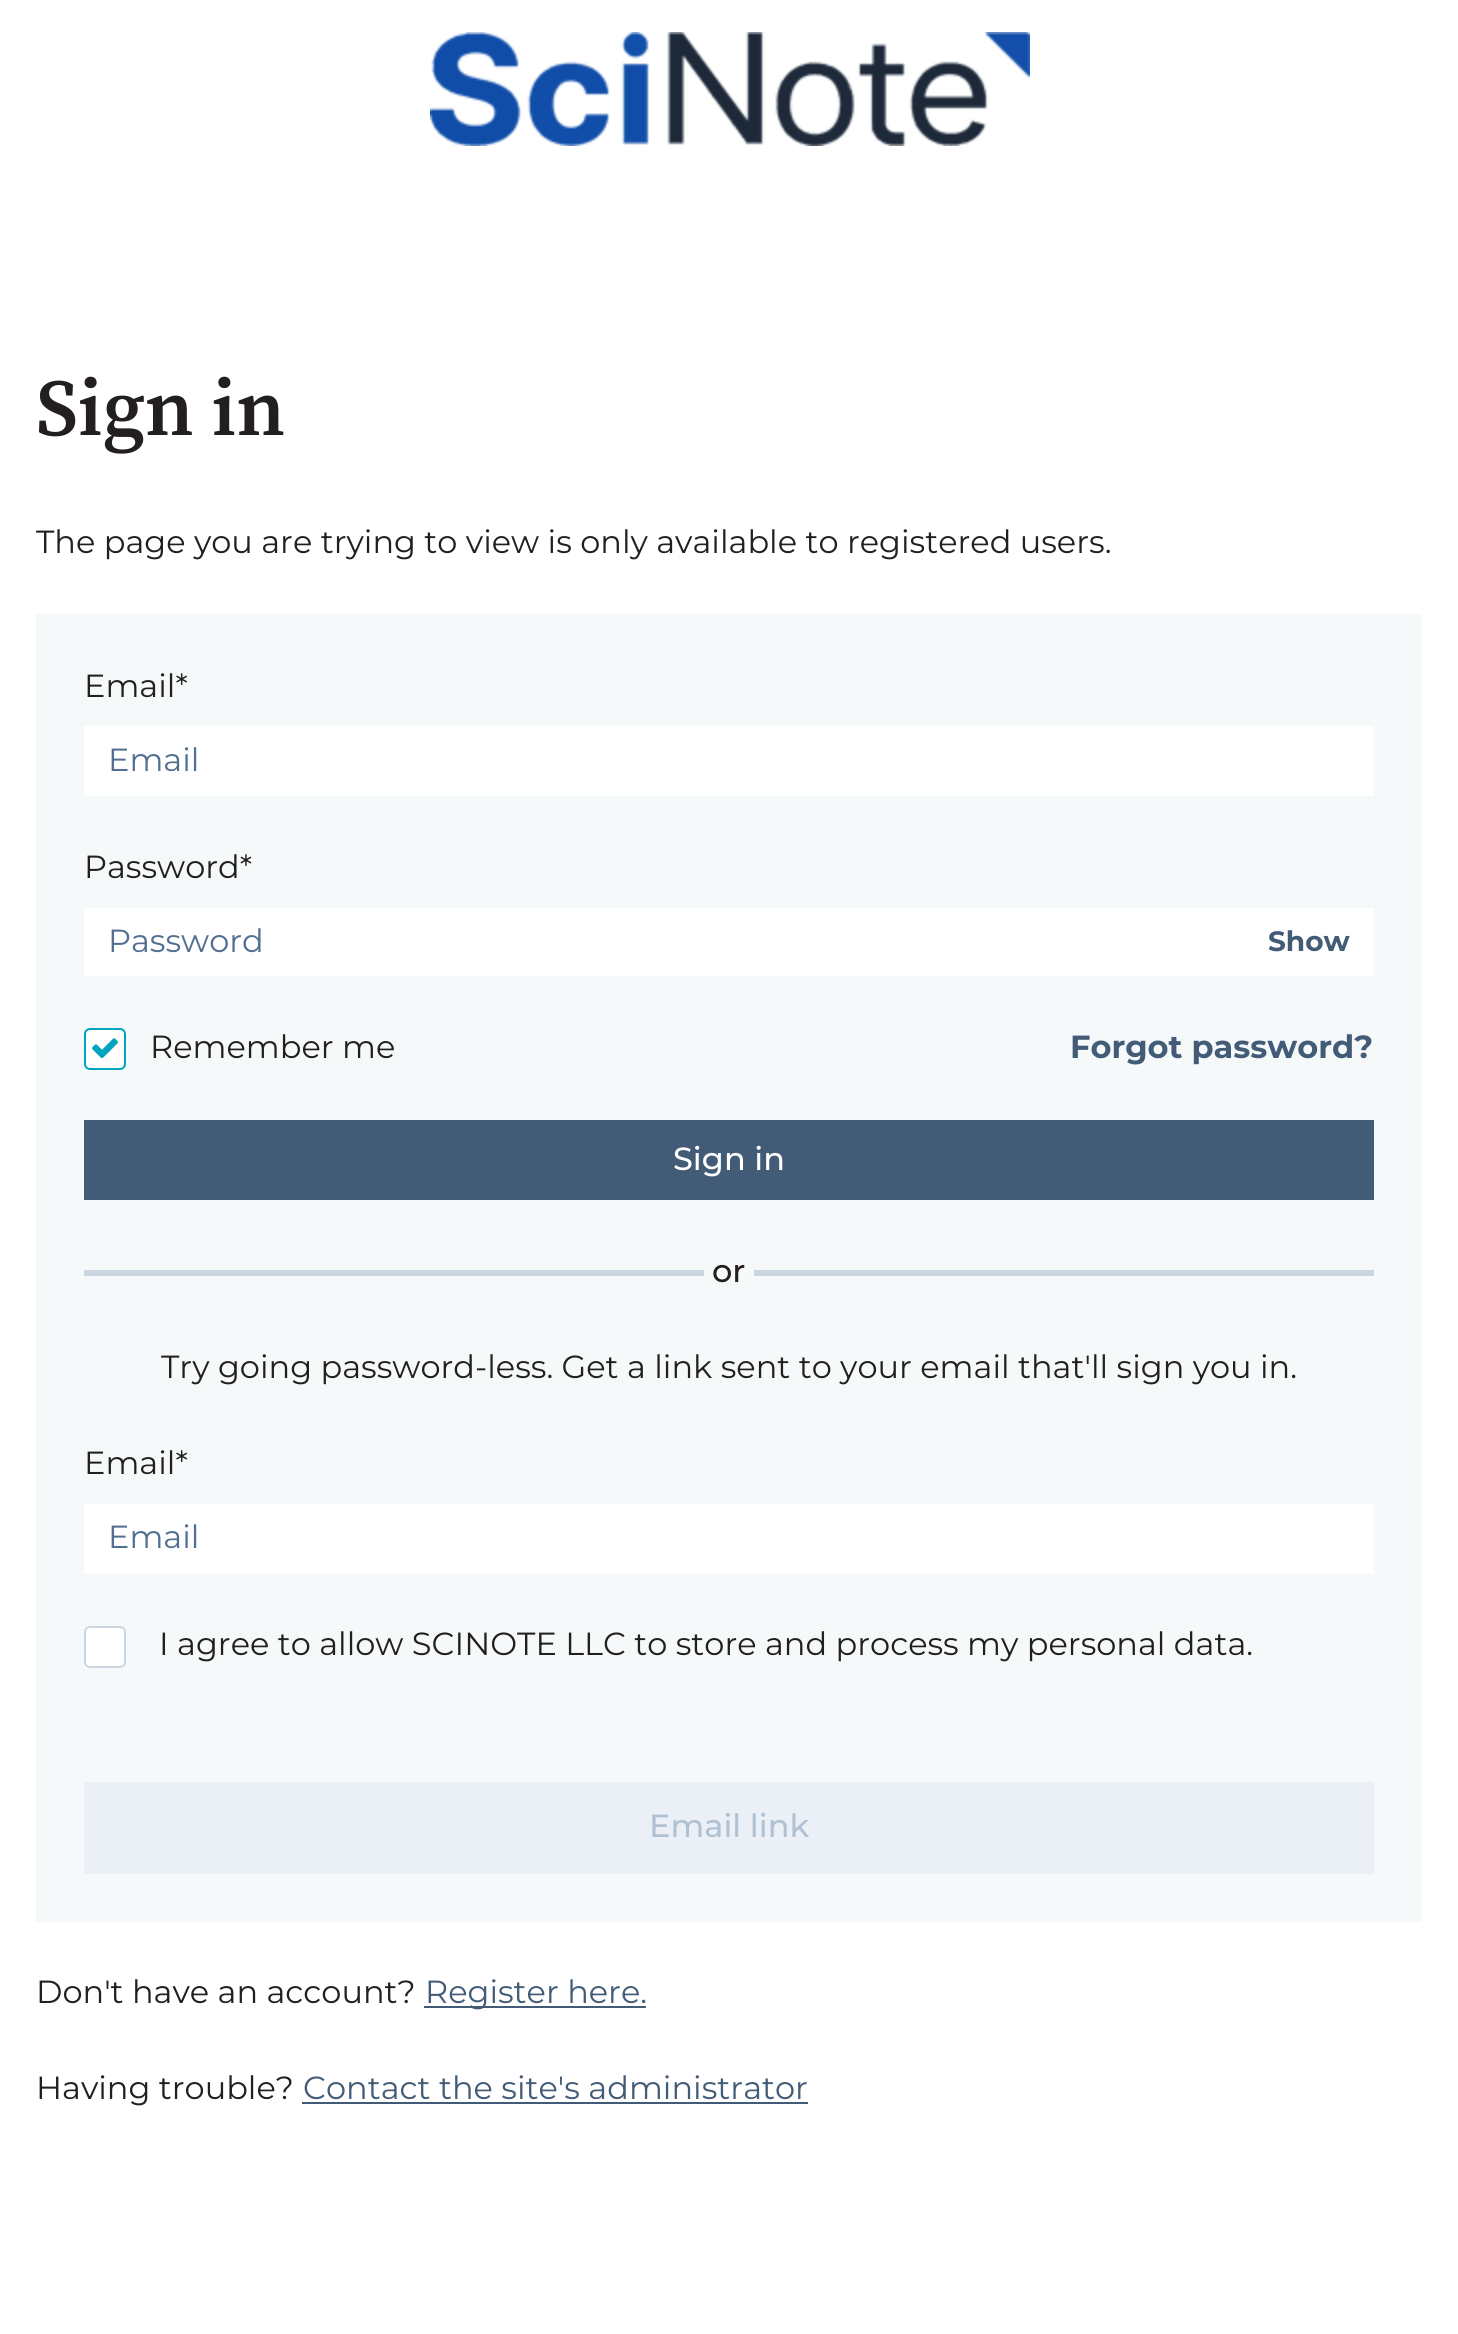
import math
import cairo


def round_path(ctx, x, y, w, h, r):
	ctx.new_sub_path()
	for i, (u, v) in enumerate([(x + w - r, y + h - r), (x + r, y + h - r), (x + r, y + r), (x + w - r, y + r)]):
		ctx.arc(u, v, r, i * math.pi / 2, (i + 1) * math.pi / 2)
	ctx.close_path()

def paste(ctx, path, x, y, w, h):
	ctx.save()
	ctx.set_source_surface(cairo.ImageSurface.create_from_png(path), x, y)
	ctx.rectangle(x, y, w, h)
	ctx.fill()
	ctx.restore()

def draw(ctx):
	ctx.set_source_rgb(1, 1, 1)
	ctx.paint()
	paste(ctx, 'media/1.png', 430, 32, 600, 114)
	ctx.select_font_face('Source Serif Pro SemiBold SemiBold')
	ctx.set_font_size(80)
	ctx.set_source_rgb(0.137, 0.122, 0.125)
	ctx.move_to(36, 435)
	ctx.show_text('Sign in')
	ctx.select_font_face('Montserrat')
	ctx.set_font_size(32)
	ctx.move_to(36, 553)
	ctx.show_text('The page you are trying to view is only available to registered users.')
	ctx.set_source_rgb(0.961, 0.973, 0.98)
	ctx.rectangle(36, 614, 1386, 1308)
	ctx.fill()
	ctx.set_source_rgb(0.137, 0.122, 0.125)
	ctx.move_to(84, 697)
	ctx.show_text('Email*')
	ctx.set_source_rgb(1, 1, 1)
	ctx.rectangle(84, 726, 1290, 70)
	ctx.fill()
	ctx.set_source_rgb(0.318, 0.435, 0.565)
	ctx.move_to(108, 771)
	ctx.show_text('Email')
	ctx.set_source_rgb(0.137, 0.122, 0.125)
	ctx.move_to(84, 878)
	ctx.show_text('Password*')
	ctx.set_source_rgb(1, 1, 1)
	ctx.rectangle(84, 908, 1290, 68)
	ctx.fill()
	ctx.set_source_rgb(0.318, 0.435, 0.565)
	ctx.move_to(108, 952)
	ctx.show_text('Password')
	ctx.select_font_face('Montserrat', cairo.FONT_SLANT_NORMAL, cairo.FONT_WEIGHT_BOLD)
	ctx.set_font_size(28)
	ctx.set_source_rgb(0.259, 0.357, 0.463)
	ctx.move_to(1268, 951)
	ctx.show_text('Show')
	ctx.set_source_rgb(1, 1, 1)
	round_path(ctx, 84, 1028, 42, 42, 6)
	ctx.fill()
	paste(ctx, 'media/2.png', 92, 1038, 26, 21)
	round_path(ctx, 85, 1029, 40, 40, 5)
	ctx.set_source_rgb(0, 0.643, 0.741)
	ctx.stroke()
	ctx.select_font_face('Montserrat')
	ctx.set_font_size(32)
	ctx.set_source_rgb(0.137, 0.122, 0.125)
	ctx.move_to(150, 1058)
	ctx.show_text('Remember me')
	ctx.select_font_face('Montserrat', cairo.FONT_SLANT_NORMAL, cairo.FONT_WEIGHT_BOLD)
	ctx.set_source_rgb(0.259, 0.357, 0.463)
	ctx.move_to(1070, 1058)
	ctx.show_text('Forgot password?')
	ctx.rectangle(84, 1120, 1290, 80)
	ctx.fill()
	ctx.select_font_face('Montserrat Medium')
	ctx.set_source_rgb(1, 1, 1)
	ctx.move_to(673, 1170)
	ctx.show_text('Sign in')
	ctx.set_source_rgb(0.796, 0.839, 0.886)
	ctx.rectangle(84, 1270, 620, 6)
	ctx.fill()
	ctx.set_source_rgb(0.137, 0.122, 0.125)
	ctx.move_to(712, 1282)
	ctx.show_text('or')
	ctx.set_source_rgb(0.796, 0.839, 0.886)
	ctx.rectangle(754, 1270, 620, 6)
	ctx.fill()
	ctx.select_font_face('Montserrat')
	ctx.set_source_rgb(0.137, 0.122, 0.125)
	ctx.move_to(161, 1378)
	ctx.show_text('Try going password-less. Get a link sent to your email that\'ll sign you in.')
	ctx.move_to(84, 1474)
	ctx.show_text('Email*')
	ctx.set_source_rgb(1, 1, 1)
	ctx.rectangle(84, 1504, 1290, 70)
	ctx.fill()
	ctx.set_source_rgb(0.318, 0.435, 0.565)
	ctx.move_to(108, 1548)
	ctx.show_text('Email')
	ctx.set_source_rgb(1, 1, 1)
	round_path(ctx, 85, 1627, 40, 40, 5)
	ctx.fill_preserve()
	ctx.set_source_rgb(0.796, 0.839, 0.886)
	ctx.stroke()
	ctx.set_source_rgb(0.137, 0.122, 0.125)
	ctx.move_to(159, 1655)
	ctx.show_text('I agree to allow SCINOTE LLC to store and process my personal data.')
	ctx.set_source_rgb(0.918, 0.941, 0.965)
	ctx.rectangle(84, 1782, 1290, 92)
	ctx.fill()
	ctx.select_font_face('Montserrat Medium')
	ctx.set_source_rgb(0.69, 0.757, 0.831)
	ctx.move_to(649, 1837)
	ctx.show_text('Email link')
	ctx.select_font_face('Montserrat')
	ctx.set_source_rgb(0.137, 0.122, 0.125)
	ctx.move_to(36, 2003)
	ctx.show_text('Don\'t have an account?')
	ctx.set_source_rgb(0.259, 0.357, 0.463)
	ctx.rectangle(424, 2006, 222, 2)
	ctx.fill()
	ctx.move_to(425, 2003)
	ctx.show_text('Register here.')
	ctx.set_source_rgb(0.137, 0.122, 0.125)
	ctx.move_to(36, 2099)
	ctx.show_text('Having trouble?')
	ctx.set_source_rgb(0.259, 0.357, 0.463)
	ctx.move_to(303, 2099)
	ctx.show_text('Contact the site\'s administrator')
	ctx.rectangle(302, 2102, 506, 2)
	ctx.fill()


surface = cairo.ImageSurface(cairo.FORMAT_RGB24, 1458, 2334)
ctx = cairo.Context(surface)
options = cairo.FontOptions()
options.set_hint_metrics(cairo.HINT_METRICS_OFF)
options.set_hint_style(cairo.HINT_STYLE_NONE)
ctx.set_font_options(options)
ctx.set_miter_limit(4)
draw(ctx)
surface.write_to_png('image.png')
